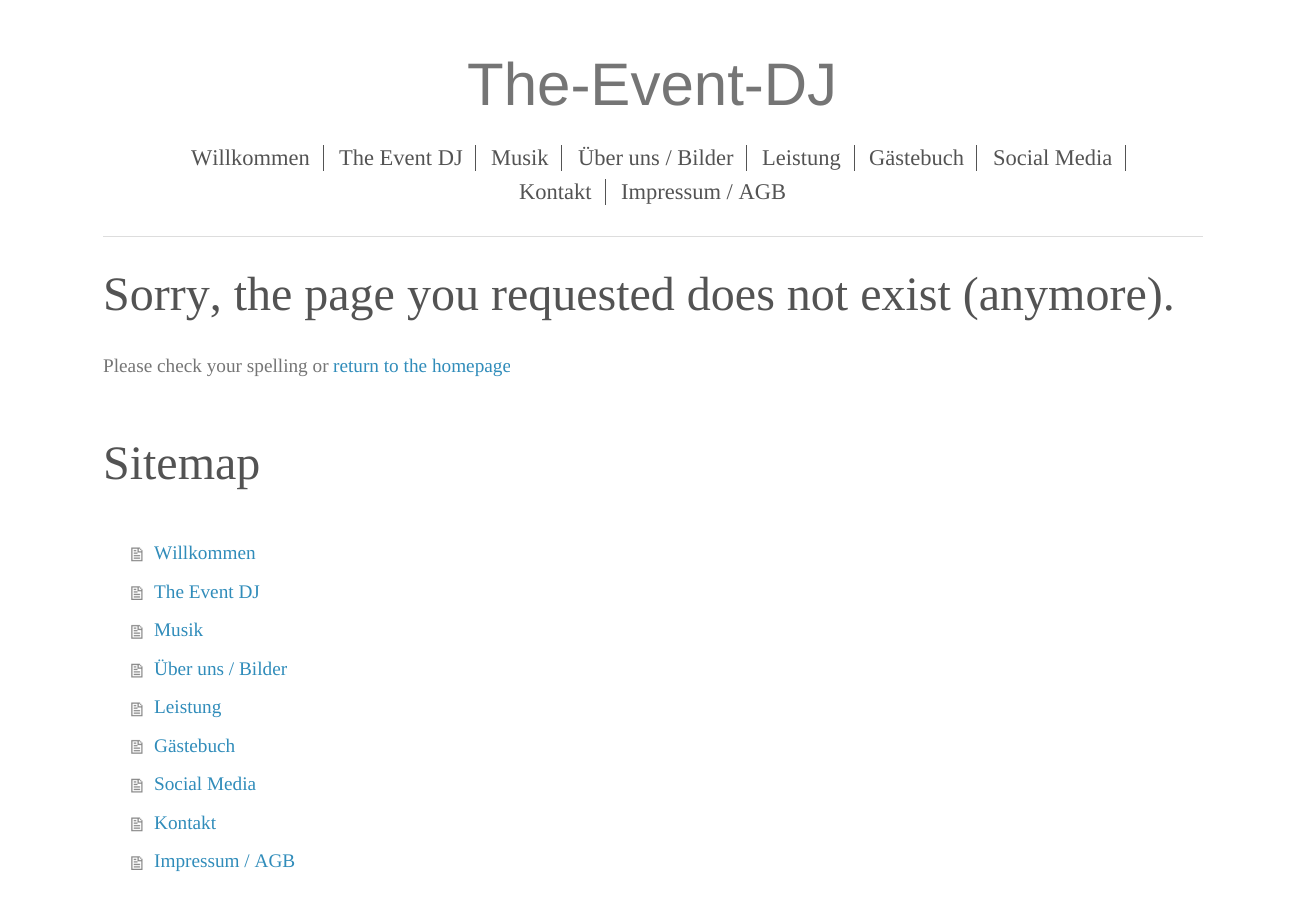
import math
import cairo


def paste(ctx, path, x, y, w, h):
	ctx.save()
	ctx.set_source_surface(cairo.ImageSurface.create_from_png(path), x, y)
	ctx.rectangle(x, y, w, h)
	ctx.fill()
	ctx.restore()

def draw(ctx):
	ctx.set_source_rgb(1, 1, 1)
	ctx.paint()
	ctx.select_font_face('Liberation Sans')
	ctx.set_font_size(60)
	ctx.set_source_rgb(0.459, 0.459, 0.459)
	ctx.move_to(467, 105)
	ctx.show_text('The-Event-DJ')
	ctx.set_source_rgb(0.867, 0.867, 0.867)
	ctx.rectangle(103, 236, 1100, 1)
	ctx.fill()
	ctx.set_source_rgb(0.325, 0.325, 0.325)
	ctx.rectangle(323, 145, 1, 26)
	ctx.fill()
	ctx.select_font_face('Liberation Serif')
	ctx.set_font_size(22.5)
	ctx.move_to(191, 165)
	ctx.show_text('Willkommen')
	ctx.rectangle(475, 145, 1, 26)
	ctx.fill()
	ctx.move_to(339, 165)
	ctx.show_text('The Event DJ')
	ctx.rectangle(561, 145, 1, 26)
	ctx.fill()
	ctx.move_to(491, 165)
	ctx.show_text('Musik')
	ctx.rectangle(746, 145, 1, 26)
	ctx.fill()
	ctx.move_to(578, 165)
	ctx.show_text('Über uns / Bilder')
	ctx.rectangle(854, 145, 1, 26)
	ctx.fill()
	ctx.move_to(762, 165)
	ctx.show_text('Leistung')
	ctx.rectangle(976, 145, 1, 26)
	ctx.fill()
	ctx.move_to(869, 165)
	ctx.show_text('Gästebuch')
	ctx.rectangle(1125, 145, 1, 26)
	ctx.fill()
	ctx.move_to(993, 165)
	ctx.show_text('Social Media')
	ctx.rectangle(605, 179, 1, 26)
	ctx.fill()
	ctx.move_to(519, 199)
	ctx.show_text('Kontakt')
	ctx.move_to(621, 199)
	ctx.show_text('Impressum / AGB')
	ctx.set_font_size(48)
	ctx.move_to(103, 310)
	ctx.show_text('Sorry, the page you requested does not exist (anymore).')
	ctx.set_font_size(19.25)
	ctx.set_source_rgb(0.459, 0.459, 0.459)
	ctx.move_to(103, 372)
	ctx.show_text('Please check your spelling or')
	ctx.set_source_rgb(0.188, 0.549, 0.729)
	ctx.move_to(333, 372)
	ctx.show_text('return to the homepage')
	ctx.set_font_size(48)
	ctx.set_source_rgb(0.325, 0.325, 0.325)
	ctx.move_to(103, 479)
	ctx.show_text('Sitemap')
	paste(ctx, 'media/1.png', 131, 547, 12, 15)
	ctx.set_font_size(19.25)
	ctx.set_source_rgb(0.188, 0.549, 0.729)
	ctx.move_to(154, 559)
	ctx.show_text('Willkommen')
	paste(ctx, 'media/2.png', 131, 586, 12, 14)
	ctx.move_to(154, 598)
	ctx.show_text('The Event DJ')
	paste(ctx, 'media/3.png', 131, 624, 12, 15)
	ctx.move_to(154, 636)
	ctx.show_text('Musik')
	paste(ctx, 'media/4.png', 131, 663, 12, 15)
	ctx.move_to(154, 675)
	ctx.show_text('Über uns / Bilder')
	paste(ctx, 'media/1.png', 131, 702, 12, 15)
	ctx.move_to(154, 713)
	ctx.show_text('Leistung')
	paste(ctx, 'media/3.png', 131, 739, 12, 15)
	ctx.move_to(154, 752)
	ctx.show_text('Gästebuch')
	paste(ctx, 'media/5.png', 131, 778, 12, 15)
	ctx.move_to(154, 790)
	ctx.show_text('Social Media')
	paste(ctx, 'media/1.png', 131, 817, 12, 15)
	ctx.move_to(154, 829)
	ctx.show_text('Kontakt')
	paste(ctx, 'media/6.png', 131, 856, 12, 14)
	ctx.move_to(154, 867)
	ctx.show_text('Impressum / AGB')


surface = cairo.ImageSurface(cairo.FORMAT_RGB24, 1305, 899)
ctx = cairo.Context(surface)
options = cairo.FontOptions()
options.set_hint_metrics(cairo.HINT_METRICS_OFF)
options.set_hint_style(cairo.HINT_STYLE_NONE)
ctx.set_font_options(options)
ctx.set_miter_limit(4)
draw(ctx)
surface.write_to_png('image.png')
